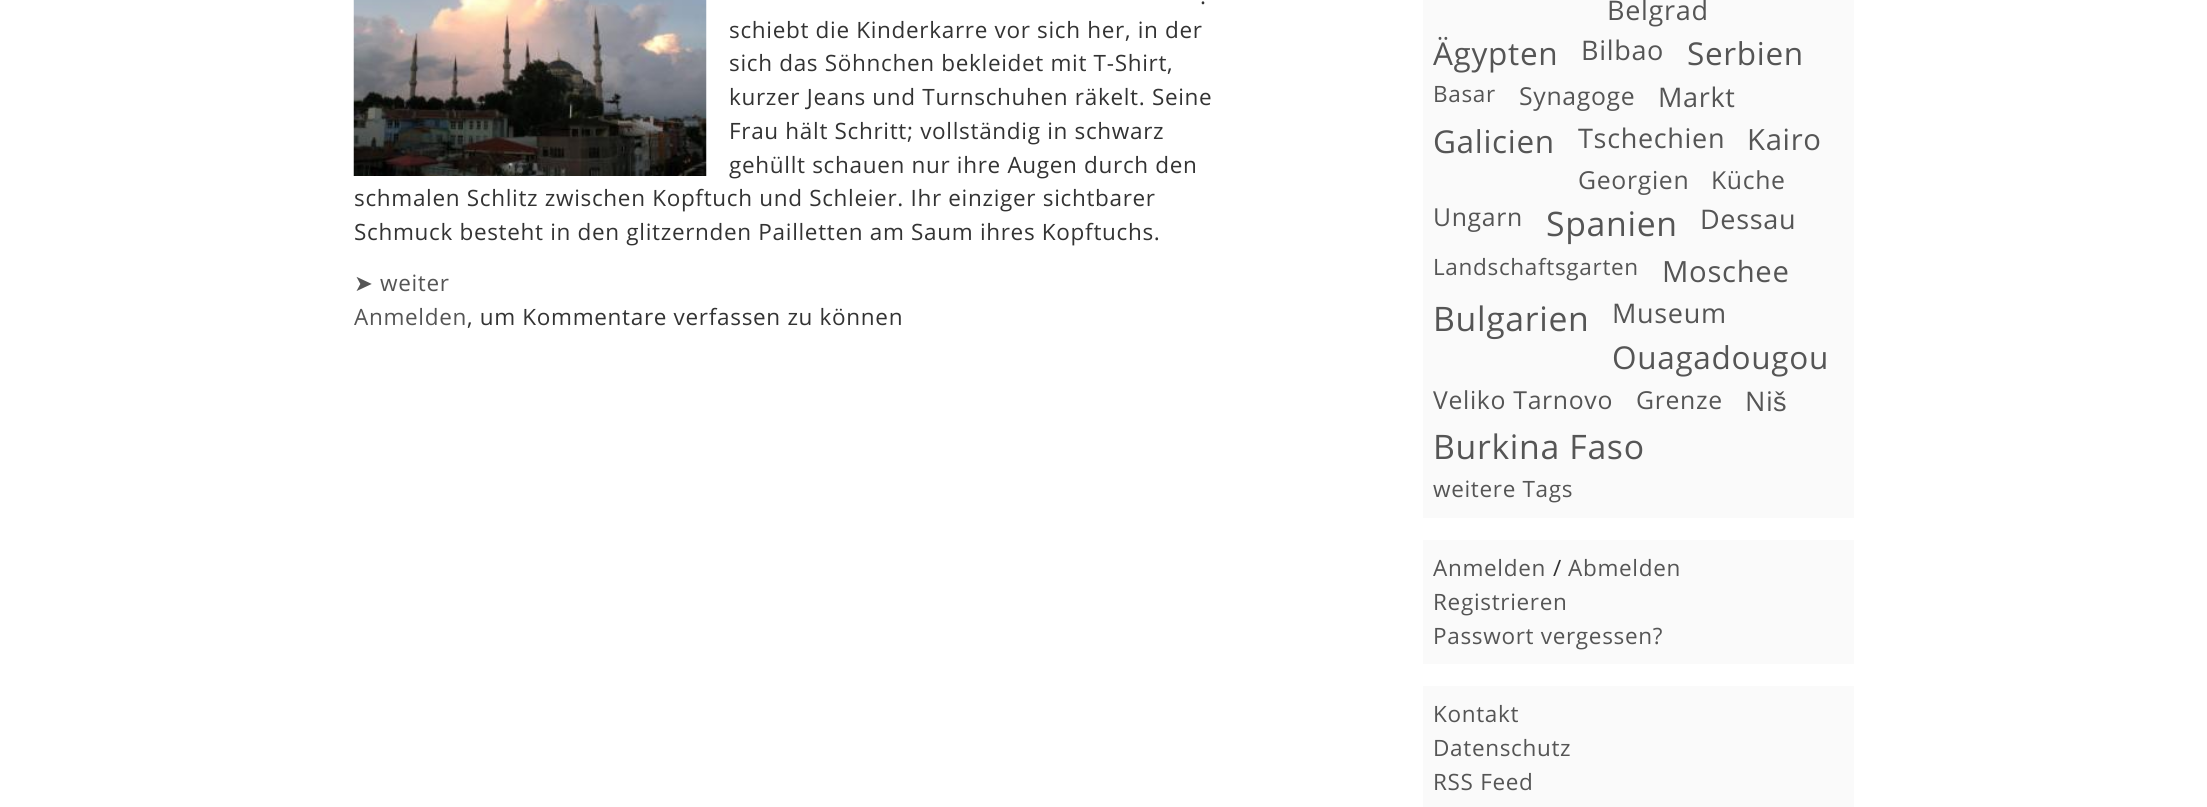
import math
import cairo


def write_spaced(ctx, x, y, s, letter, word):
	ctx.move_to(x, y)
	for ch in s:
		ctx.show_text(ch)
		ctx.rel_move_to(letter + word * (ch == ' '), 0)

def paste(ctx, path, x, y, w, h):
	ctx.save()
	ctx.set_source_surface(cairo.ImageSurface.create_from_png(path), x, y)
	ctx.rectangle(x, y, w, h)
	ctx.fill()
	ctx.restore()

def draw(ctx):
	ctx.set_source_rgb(1, 1, 1)
	ctx.paint()
	paste(ctx, 'media/1.png', 353, 0, 354, 176)
	ctx.select_font_face('Open Sans')
	ctx.set_font_size(22.5)
	ctx.set_source_rgb(0.2, 0.2, 0.2)
	for x, y, s in [
		(1200, 4, '.'),
		(729, 38, 'schiebt die Kinderkarre vor sich her, in der'),
		(729, 71, 'sich das Söhnchen bekleidet mit T-Shirt,'),
		(729, 105, 'kurzer Jeans und Turnschuhen räkelt. Seine'),
		(729, 139, 'Frau hält Schritt; vollständig in schwarz'),
		(729, 173, 'gehüllt schauen nur ihre Augen durch den'),
		(354, 206, 'schmalen Schlitz zwischen Kopftuch und Schleier. Ihr einziger sichtbarer'),
		(354, 240, 'Schmuck besteht in den glitzernden Pailletten am Saum ihres Kopftuchs.'),
	]:
		write_spaced(ctx, x, y, s, 0.68, 0)
	ctx.select_font_face('DejaVu Sans')
	ctx.set_source_rgb(0.333, 0.333, 0.333)
	write_spaced(ctx, 354, 291, '➤', 0.68, 0)
	ctx.select_font_face('Open Sans')
	write_spaced(ctx, 380, 291, 'weiter', 0.68, 0)
	write_spaced(ctx, 354, 325, 'Anmelden', 0.68, 0)
	ctx.set_source_rgb(0.2, 0.2, 0.2)
	write_spaced(ctx, 467, 325, ', um Kommentare verfassen zu können', 0.68, 0)
	ctx.set_source_rgb(0.98, 0.98, 0.98)
	ctx.rectangle(1423, 0, 431, 518)
	ctx.fill()
	ctx.set_font_size(27)
	ctx.set_source_rgb(0.333, 0.333, 0.333)
	write_spaced(ctx, 1607, 20, 'Belgrad', 0.68, 0)
	ctx.set_font_size(31.5)
	write_spaced(ctx, 1433, 65, 'Ägypten', 0.68, 0)
	ctx.set_font_size(27)
	write_spaced(ctx, 1581, 60, 'Bilbao', 0.68, 0)
	ctx.set_font_size(31.5)
	write_spaced(ctx, 1687, 65, 'Serbien', 0.68, 0)
	ctx.set_font_size(22.5)
	write_spaced(ctx, 1433, 102, 'Basar', 0.68, 0)
	ctx.set_font_size(24.75)
	write_spaced(ctx, 1519, 105, 'Synagoge', 0.68, 0)
	ctx.set_font_size(27)
	write_spaced(ctx, 1658, 107, 'Markt', 0.68, 0)
	ctx.set_font_size(31.5)
	write_spaced(ctx, 1433, 153, 'Galicien', 0.68, 0)
	ctx.set_font_size(27)
	write_spaced(ctx, 1578, 148, 'Tschechien', 0.68, 0)
	ctx.set_font_size(29.25)
	write_spaced(ctx, 1747, 150, 'Kairo', 0.68, 0)
	ctx.set_font_size(24.75)
	for x, y, s in [
		(1578, 189, 'Georgien'),
		(1711, 189, 'Küche'),
		(1433, 226, 'Ungarn'),
	]:
		write_spaced(ctx, x, y, s, 0.68, 0)
	ctx.set_font_size(33.75)
	write_spaced(ctx, 1546, 236, 'Spanien', 0.68, 0)
	ctx.set_font_size(27)
	write_spaced(ctx, 1700, 229, 'Dessau', 0.68, 0)
	ctx.set_font_size(22.5)
	write_spaced(ctx, 1433, 275, 'Landschaftsgarten', 0.68, 0)
	ctx.set_font_size(29.25)
	write_spaced(ctx, 1662, 282, 'Moschee', 0.68, 0)
	ctx.set_font_size(33.75)
	write_spaced(ctx, 1433, 331, 'Bulgarien', 0.68, 0)
	ctx.set_font_size(27)
	write_spaced(ctx, 1612, 323, 'Museum', 0.68, 0)
	ctx.set_font_size(31.5)
	write_spaced(ctx, 1612, 369, 'Ouagadougou', 0.68, 0)
	ctx.set_font_size(24.75)
	write_spaced(ctx, 1433, 409, 'Veliko Tarnovo', 0.68, 0)
	write_spaced(ctx, 1636, 409, 'Grenze', 0.68, 0)
	ctx.set_font_size(27)
	write_spaced(ctx, 1745, 411, 'Ni', 0.68, 0)
	ctx.select_font_face('Liberation Sans')
	write_spaced(ctx, 1773, 411, 'š', 0.68, 0)
	ctx.select_font_face('Open Sans')
	ctx.set_font_size(33.75)
	write_spaced(ctx, 1433, 459, 'Burkina Faso', 0.68, 0)
	ctx.set_font_size(22.5)
	write_spaced(ctx, 1433, 497, 'weitere Tags', 0.68, 0)
	ctx.set_source_rgb(0.98, 0.98, 0.98)
	ctx.rectangle(1423, 540, 431, 124)
	ctx.fill()
	ctx.set_source_rgb(0.333, 0.333, 0.333)
	write_spaced(ctx, 1433, 576, 'Anmelden', 0.68, 0)
	ctx.set_source_rgb(0.2, 0.2, 0.2)
	write_spaced(ctx, 1553, 576, '/', 0.68, 0)
	ctx.set_source_rgb(0.333, 0.333, 0.333)
	for x, y, s in [
		(1568, 576, 'Abmelden'),
		(1433, 610, 'Registrieren'),
		(1433, 644, 'Passwort vergessen?'),
	]:
		write_spaced(ctx, x, y, s, 0.68, 0)
	ctx.set_source_rgb(0.98, 0.98, 0.98)
	ctx.rectangle(1423, 686, 431, 121)
	ctx.fill()
	ctx.set_source_rgb(0.333, 0.333, 0.333)
	for x, y, s in [
		(1433, 722, 'Kontakt'),
		(1433, 756, 'Datenschutz'),
		(1433, 790, 'RSS Feed'),
	]:
		write_spaced(ctx, x, y, s, 0.68, 0)


surface = cairo.ImageSurface(cairo.FORMAT_RGB24, 2207, 807)
ctx = cairo.Context(surface)
options = cairo.FontOptions()
options.set_hint_metrics(cairo.HINT_METRICS_OFF)
options.set_hint_style(cairo.HINT_STYLE_NONE)
ctx.set_font_options(options)
ctx.set_miter_limit(4)
draw(ctx)
surface.write_to_png('image.png')
